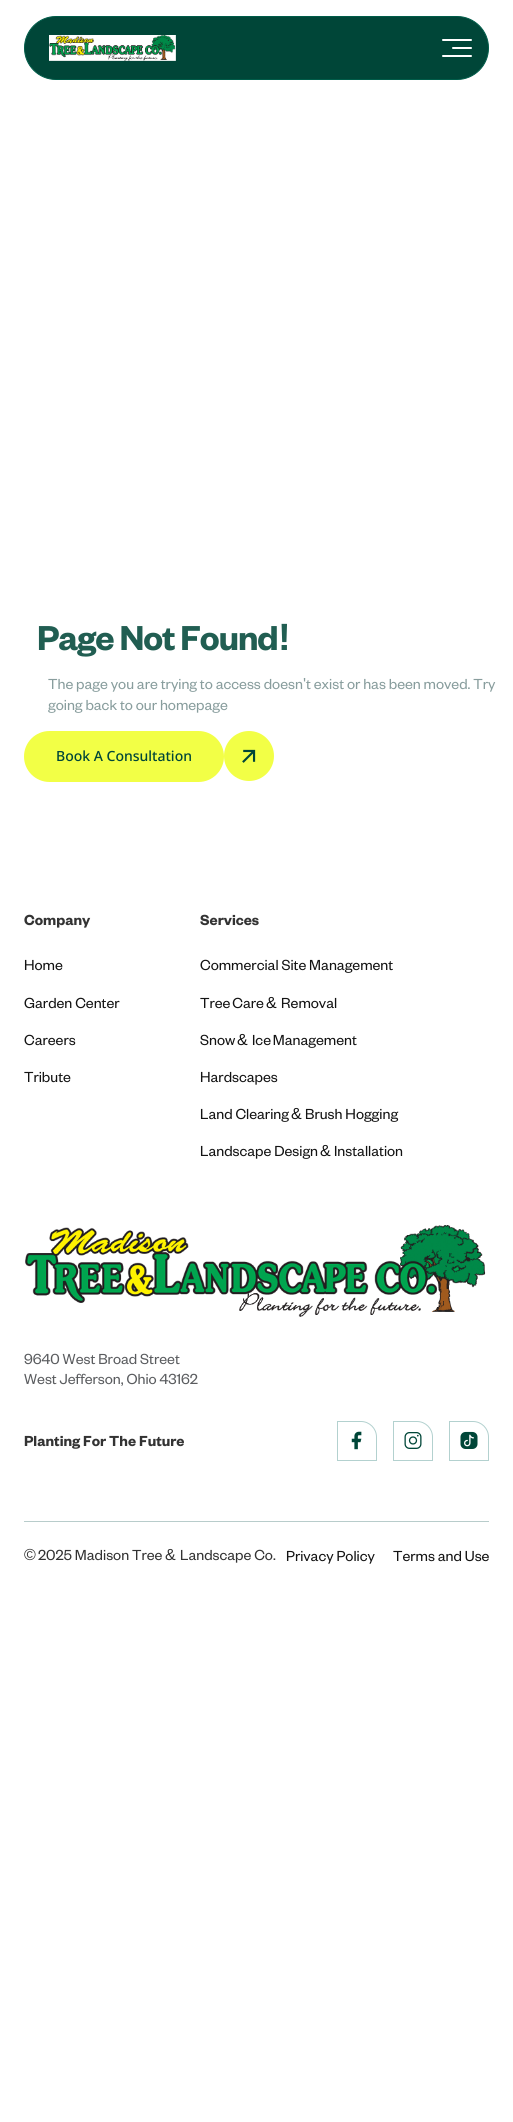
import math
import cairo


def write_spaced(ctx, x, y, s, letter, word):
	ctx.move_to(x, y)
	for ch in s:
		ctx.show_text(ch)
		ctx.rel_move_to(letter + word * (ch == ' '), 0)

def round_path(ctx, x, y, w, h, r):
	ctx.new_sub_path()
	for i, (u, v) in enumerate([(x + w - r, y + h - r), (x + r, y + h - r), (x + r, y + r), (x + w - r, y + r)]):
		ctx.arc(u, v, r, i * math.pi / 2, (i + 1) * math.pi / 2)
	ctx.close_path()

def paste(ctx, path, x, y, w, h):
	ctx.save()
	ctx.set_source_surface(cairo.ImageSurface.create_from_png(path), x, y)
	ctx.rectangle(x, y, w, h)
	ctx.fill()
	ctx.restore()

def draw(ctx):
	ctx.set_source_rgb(1, 1, 1)
	ctx.paint()
	ctx.set_source_rgb(0, 0.275, 0.22)
	round_path(ctx, 24.5, 16.5, 464, 63, 31.5)
	ctx.fill_preserve()
	ctx.set_source_rgb(0, 0.361, 0.286)
	ctx.set_line_width(1)
	ctx.stroke()
	paste(ctx, 'media/1.png', 49, 35, 127, 26)
	ctx.set_source_rgb(1, 1, 1)
	round_path(ctx, 442, 39, 30, 2, 1)
	ctx.fill()
	round_path(ctx, 452, 47, 20, 2, 1)
	ctx.fill()
	round_path(ctx, 442, 55, 30, 2, 1)
	ctx.fill()
	ctx.select_font_face('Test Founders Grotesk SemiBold')
	ctx.set_font_size(38)
	ctx.set_source_rgb(0.129, 0.369, 0.322)
	write_spaced(ctx, 37, 650, 'Page Not Found', -1, 0)
	ctx.select_font_face('Liberation Sans', cairo.FONT_SLANT_NORMAL, cairo.FONT_WEIGHT_BOLD)
	write_spaced(ctx, 278, 650, '!', -1, 0)
	ctx.select_font_face('Test Founders Grotesk')
	ctx.set_font_size(16)
	ctx.set_source_rgb(0.533, 0.616, 0.616)
	ctx.move_to(48, 689)
	ctx.show_text('The page you are trying to access doesn')
	ctx.select_font_face('Liberation Sans')
	ctx.move_to(303, 689)
	ctx.show_text('\'')
	ctx.select_font_face('Test Founders Grotesk')
	ctx.move_to(306, 689)
	ctx.show_text('t exist or has been moved. Try')
	ctx.move_to(48, 710)
	ctx.show_text('going back to our homepage')
	ctx.set_source_rgb(0.949, 1, 0.275)
	round_path(ctx, 24, 731, 200, 51, 25.5)
	ctx.fill()
	ctx.select_font_face('Noto Sans Medium')
	ctx.set_font_size(14)
	ctx.set_source_rgb(0, 0.275, 0.22)
	ctx.move_to(56, 761)
	ctx.show_text('Book A Consultation')
	ctx.set_source_rgb(0.949, 1, 0.275)
	ctx.new_path()
	ctx.arc(249, 756, 25, 0, 2 * math.pi)
	ctx.fill()
	paste(ctx, 'media/2.png', 242, 749, 14, 14)
	ctx.select_font_face('Test Founders Grotesk SemiBold')
	ctx.set_font_size(16)
	ctx.set_source_rgb(0.2, 0.2, 0.2)
	ctx.move_to(24, 925)
	ctx.show_text('Company')
	ctx.select_font_face('Test Founders Grotesk')
	ctx.set_source_rgb(0.078, 0.078, 0.078)
	for x, y, s in [
		(24, 970, 'Home'),
		(24, 1008, 'Garden Center'),
		(24, 1045, 'Careers'),
		(24, 1082, 'Tribute'),
	]:
		ctx.move_to(x, y)
		ctx.show_text(s)
	ctx.select_font_face('Test Founders Grotesk SemiBold')
	ctx.set_source_rgb(0.2, 0.2, 0.2)
	ctx.move_to(200, 925)
	ctx.show_text('Services')
	ctx.select_font_face('Test Founders Grotesk')
	ctx.set_source_rgb(0.078, 0.078, 0.078)
	ctx.move_to(200, 970)
	ctx.show_text('Commercial Site Management')
	write_spaced(ctx, 200, 1008, 'Tree Care', 0, -1)
	ctx.select_font_face('Liberation Sans')
	ctx.move_to(266, 1008)
	ctx.show_text('&')
	ctx.select_font_face('Test Founders Grotesk')
	ctx.move_to(281, 1008)
	ctx.show_text('Removal')
	ctx.move_to(200, 1045)
	ctx.show_text('Snow')
	ctx.select_font_face('Liberation Sans')
	ctx.move_to(237, 1045)
	ctx.show_text('&')
	ctx.select_font_face('Test Founders Grotesk')
	write_spaced(ctx, 252, 1045, 'Ice Management', 0, -1)
	ctx.move_to(200, 1082)
	ctx.show_text('Hardscapes')
	ctx.move_to(200, 1119)
	ctx.show_text('Land Clearing')
	ctx.select_font_face('Liberation Sans')
	ctx.move_to(291, 1119)
	ctx.show_text('&')
	ctx.select_font_face('Test Founders Grotesk')
	ctx.move_to(305, 1119)
	ctx.show_text('Brush Hogging')
	ctx.move_to(200, 1156)
	ctx.show_text('Landscape Design')
	ctx.select_font_face('Liberation Sans')
	ctx.move_to(320, 1156)
	ctx.show_text('&')
	ctx.select_font_face('Test Founders Grotesk')
	ctx.move_to(334, 1156)
	ctx.show_text('Installation')
	paste(ctx, 'media/3.png', 25, 1225, 461, 92)
	ctx.set_source_rgb(0.353, 0.361, 0.373)
	ctx.move_to(24, 1364)
	ctx.show_text('9640 West Broad Street')
	ctx.move_to(24, 1384)
	ctx.show_text('West Jefferson, Ohio 43162')
	ctx.select_font_face('Test Founders Grotesk SemiBold')
	ctx.set_source_rgb(0.2, 0.2, 0.2)
	ctx.move_to(24, 1446)
	ctx.show_text('Planting For The Future')
	ctx.new_path()
	ctx.move_to(337.5, 1421.5)
	ctx.line_to(361, 1421.5)
	ctx.curve_to(369.5, 1421.5, 376.5, 1428.5, 376.5, 1437)
	ctx.line_to(376.5, 1460.5)
	ctx.line_to(337.5, 1460.5)
	ctx.close_path()
	ctx.set_source_rgb(0.702, 0.82, 0.812)
	ctx.stroke()
	paste(ctx, 'media/4.png', 351, 1431, 11, 19)
	ctx.new_path()
	ctx.move_to(393.5, 1421.5)
	ctx.line_to(417, 1421.5)
	ctx.curve_to(425.5, 1421.5, 432.5, 1428.5, 432.5, 1437)
	ctx.line_to(432.5, 1460.5)
	ctx.line_to(393.5, 1460.5)
	ctx.close_path()
	ctx.stroke()
	paste(ctx, 'media/5.png', 404, 1432, 18, 17)
	ctx.new_path()
	ctx.move_to(449.5, 1421.5)
	ctx.line_to(473, 1421.5)
	ctx.curve_to(481.5, 1421.5, 488.5, 1428.5, 488.5, 1437)
	ctx.line_to(488.5, 1460.5)
	ctx.line_to(449.5, 1460.5)
	ctx.close_path()
	ctx.stroke()
	paste(ctx, 'media/6.png', 460, 1431, 18, 18)
	ctx.set_source_rgb(0.722, 0.8, 0.796)
	ctx.rectangle(24, 1521, 465, 1)
	ctx.fill()
	ctx.select_font_face('Liberation Sans')
	ctx.set_source_rgb(0.2, 0.2, 0.2)
	ctx.move_to(24, 1560)
	ctx.show_text('©')
	ctx.select_font_face('Test Founders Grotesk')
	ctx.move_to(38, 1560)
	ctx.show_text('2025 Madison Tree')
	ctx.select_font_face('Liberation Sans')
	ctx.move_to(165, 1560)
	ctx.show_text('&')
	ctx.select_font_face('Test Founders Grotesk')
	ctx.move_to(180, 1560)
	ctx.show_text('Landscape Co.')
	ctx.set_source_rgb(0.078, 0.078, 0.078)
	ctx.move_to(286, 1561)
	ctx.show_text('Privacy Policy')
	ctx.move_to(393, 1561)
	ctx.show_text('Terms and Use')


surface = cairo.ImageSurface(cairo.FORMAT_RGB24, 513, 2122)
ctx = cairo.Context(surface)
options = cairo.FontOptions()
options.set_hint_metrics(cairo.HINT_METRICS_OFF)
options.set_hint_style(cairo.HINT_STYLE_NONE)
ctx.set_font_options(options)
ctx.set_miter_limit(4)
draw(ctx)
surface.write_to_png('image.png')
